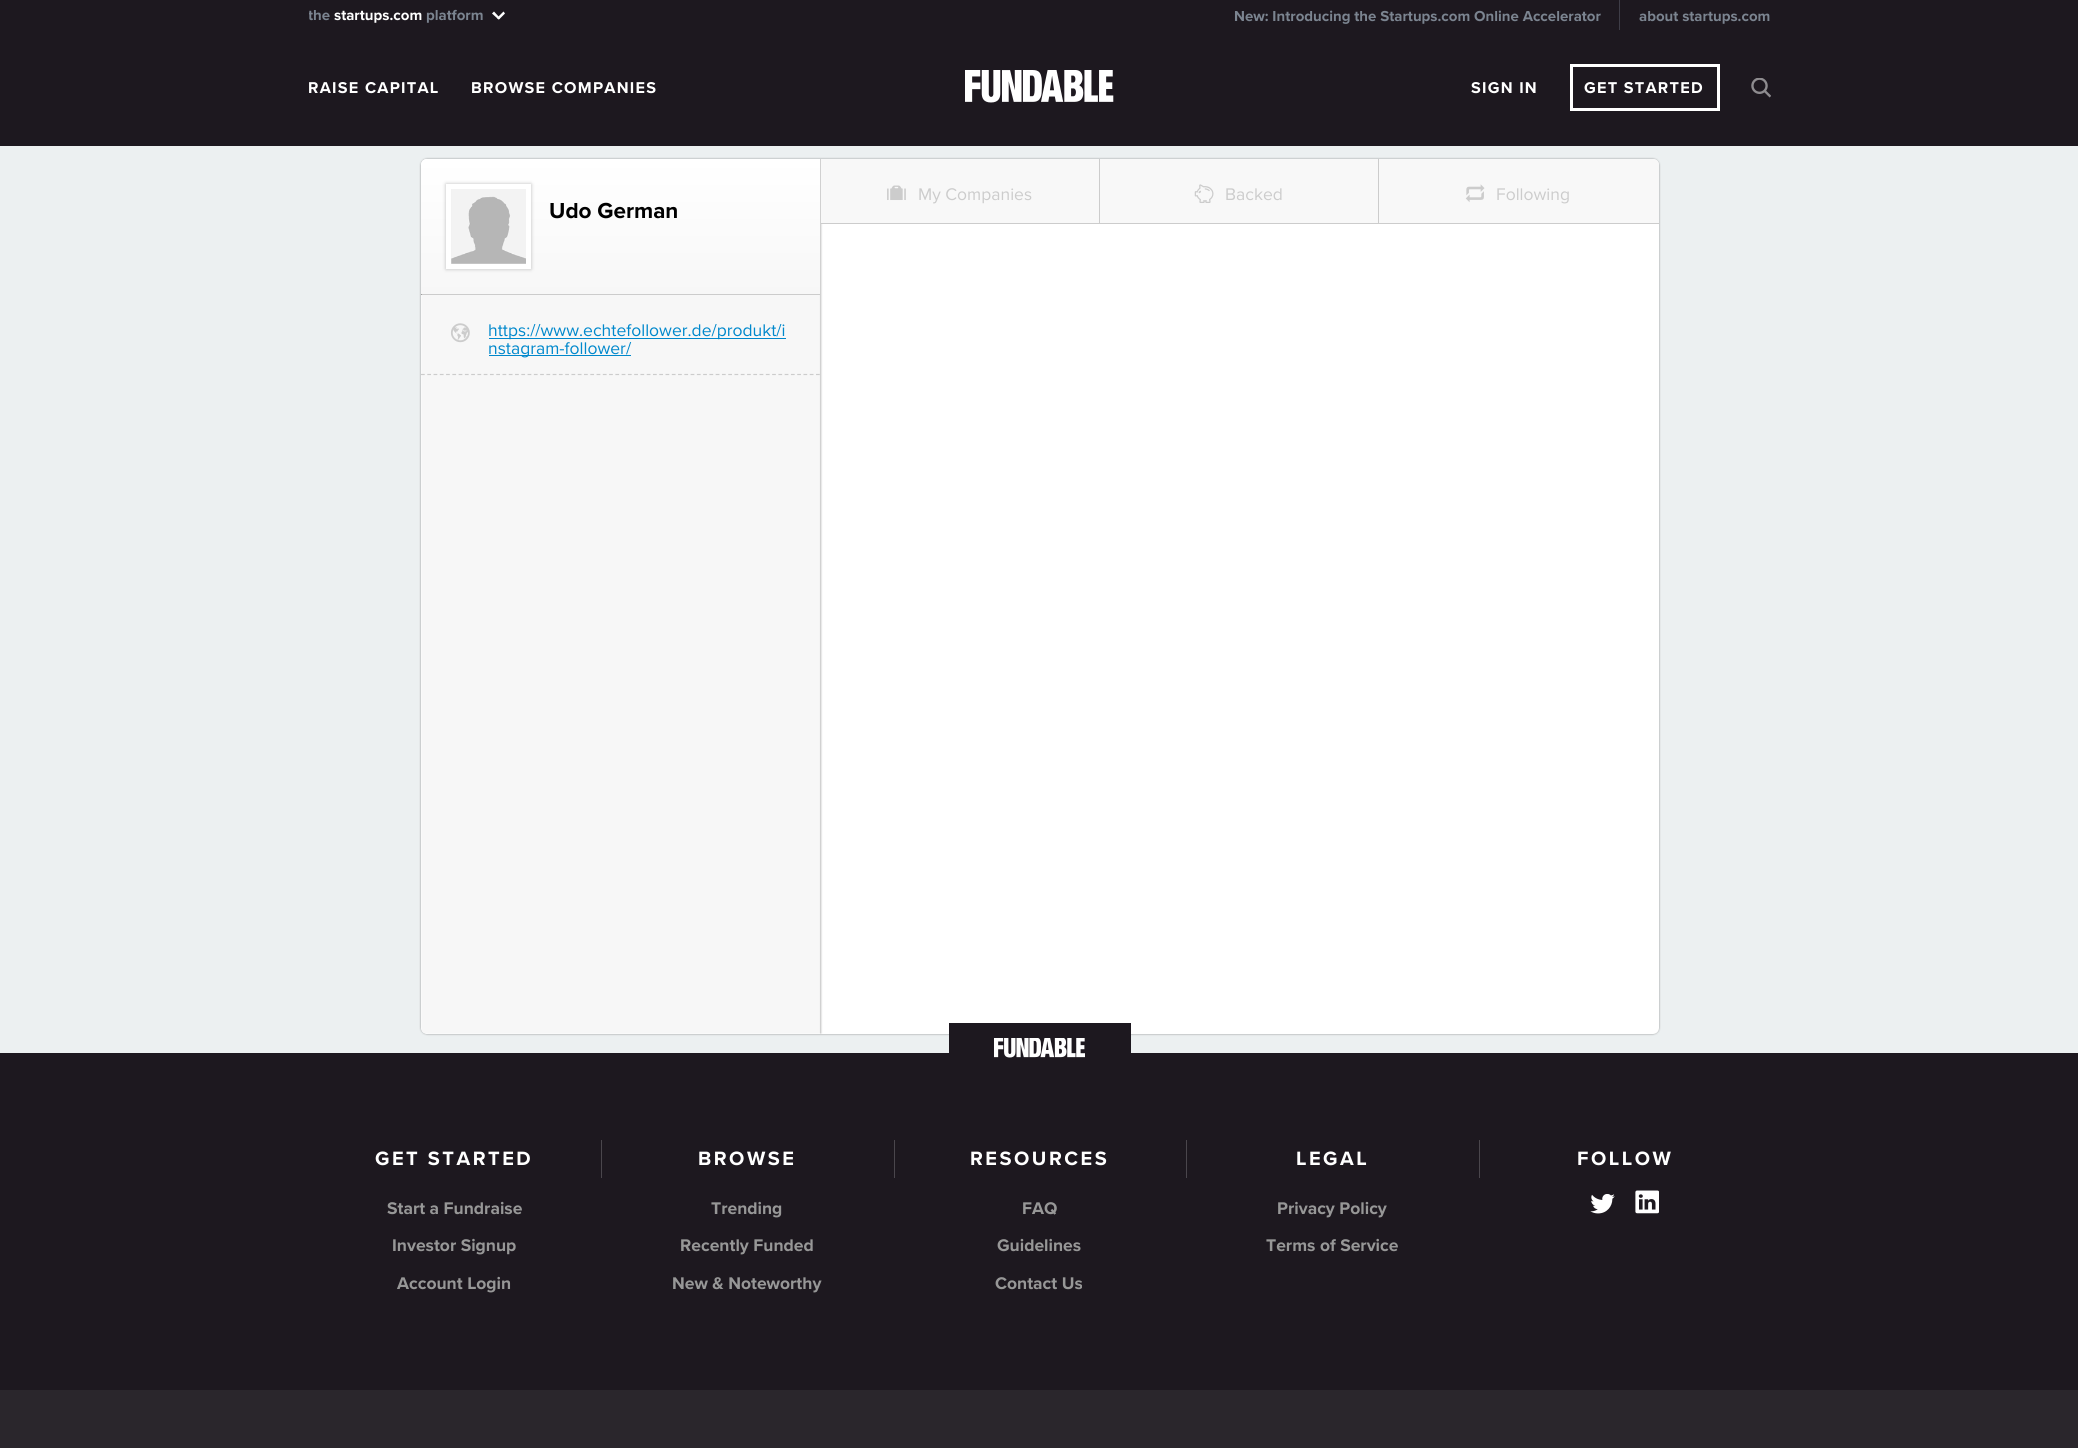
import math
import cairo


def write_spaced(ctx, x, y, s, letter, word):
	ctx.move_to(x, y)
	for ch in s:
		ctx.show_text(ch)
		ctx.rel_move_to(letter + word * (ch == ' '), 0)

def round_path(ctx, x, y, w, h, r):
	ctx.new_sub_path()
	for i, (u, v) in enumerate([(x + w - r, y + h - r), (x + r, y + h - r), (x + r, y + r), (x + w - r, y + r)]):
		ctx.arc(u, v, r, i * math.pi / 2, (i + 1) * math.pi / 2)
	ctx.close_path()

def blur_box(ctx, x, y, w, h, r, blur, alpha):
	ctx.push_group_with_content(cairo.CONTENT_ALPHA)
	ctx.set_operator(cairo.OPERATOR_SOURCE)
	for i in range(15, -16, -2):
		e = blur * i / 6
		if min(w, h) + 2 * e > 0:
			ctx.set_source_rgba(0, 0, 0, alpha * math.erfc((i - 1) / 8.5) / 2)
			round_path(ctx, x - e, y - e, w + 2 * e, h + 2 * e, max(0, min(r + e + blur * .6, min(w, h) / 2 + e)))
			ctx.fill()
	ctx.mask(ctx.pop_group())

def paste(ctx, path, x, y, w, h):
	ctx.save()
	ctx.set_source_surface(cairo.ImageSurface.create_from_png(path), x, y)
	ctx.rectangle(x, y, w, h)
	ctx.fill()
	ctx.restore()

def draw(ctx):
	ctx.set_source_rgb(0.114, 0.094, 0.122)
	ctx.paint()
	ctx.save()
	ctx.rectangle(309, 0, 1462, 30)
	ctx.clip()
	ctx.select_font_face('Proxima Nova', cairo.FONT_SLANT_NORMAL, cairo.FONT_WEIGHT_BOLD)
	ctx.set_font_size(15)
	ctx.set_source_rgb(0.482, 0.518, 0.565)
	ctx.move_to(308, 20)
	ctx.show_text('the')
	ctx.restore()
	ctx.select_font_face('Proxima Nova', cairo.FONT_SLANT_NORMAL, cairo.FONT_WEIGHT_BOLD)
	ctx.set_font_size(15)
	ctx.set_source_rgb(1, 1, 1)
	ctx.move_to(334, 20)
	ctx.show_text('startups.com')
	ctx.set_source_rgb(0.482, 0.518, 0.565)
	ctx.move_to(426, 20)
	ctx.show_text('platform')
	ctx.set_source_rgb(1, 1, 1)
	ctx.new_path()
	ctx.move_to(500, 18)
	ctx.line_to(498.5, 19.5)
	ctx.line_to(492, 13.5)
	ctx.line_to(494, 11.5)
	ctx.close_path()
	ctx.fill()
	ctx.new_path()
	ctx.move_to(499, 19.5)
	ctx.line_to(497, 18)
	ctx.line_to(503.5, 11.5)
	ctx.line_to(505, 13.5)
	ctx.close_path()
	ctx.fill()
	ctx.set_source_rgb(0.243, 0.239, 0.278)
	ctx.rectangle(1619, 0, 1, 30)
	ctx.fill()
	ctx.set_source_rgb(0.482, 0.518, 0.565)
	ctx.move_to(1234, 21)
	ctx.show_text('New: Introducing the Startups.com Online Accelerator')
	ctx.move_to(1639, 21)
	ctx.show_text('about startups.com')
	ctx.set_font_size(16.25)
	ctx.set_source_rgb(1, 1, 1)
	write_spaced(ctx, 308, 93, 'RAISE CAPITAL', 1.25, 0)
	write_spaced(ctx, 471, 93, 'BROWSE COMPANIES', 1.25, 0)
	paste(ctx, 'media/1.png', 965, 70, 149, 33)
	write_spaced(ctx, 1471, 93, 'SIGN IN', 1.25, 0)
	ctx.rectangle(1571.5, 65.5, 147, 44)
	ctx.set_line_width(3)
	ctx.stroke()
	write_spaced(ctx, 1584, 93, 'GET STARTED', 1.25, 0)
	paste(ctx, 'media/2.png', 1751, 78, 20, 20)
	ctx.set_source_rgb(0.925, 0.941, 0.945)
	ctx.rectangle(0, 146, 2078, 907)
	ctx.fill()
	ctx.set_source_rgb(0, 0, 0)
	blur_box(ctx, 421, 159, 1238, 875, 6, 1, 0.4)
	ctx.set_source_rgb(1, 1, 1)
	round_path(ctx, 421, 159, 1238, 875, 6)
	ctx.fill()
	paste(ctx, 'media/3.png', 421, 159, 402, 875)
	ctx.set_source_rgb(0.969, 0.969, 0.969)
	ctx.new_path()
	ctx.move_to(821, 159)
	ctx.line_to(1653, 159)
	ctx.curve_to(1656.5, 159, 1659, 161.5, 1659, 165)
	ctx.line_to(1659, 224)
	ctx.line_to(821, 224)
	ctx.close_path()
	ctx.fill()
	ctx.set_source_rgb(0.8, 0.8, 0.8)
	ctx.rectangle(821, 223, 838, 1)
	ctx.fill()
	ctx.rectangle(1099, 159, 1, 65)
	ctx.fill()
	ctx.select_font_face('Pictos')
	ctx.set_font_size(22.5)
	ctx.move_to(886, 200)
	ctx.show_text('O')
	ctx.select_font_face('Proxima Nova')
	ctx.set_font_size(17.5)
	ctx.move_to(918, 200)
	ctx.show_text('My Companies')
	ctx.rectangle(1378, 159, 1, 65)
	ctx.fill()
	ctx.select_font_face('Pictos')
	ctx.set_font_size(22.5)
	ctx.move_to(1194, 200)
	ctx.show_text('%')
	ctx.select_font_face('Proxima Nova')
	ctx.set_font_size(17.5)
	ctx.move_to(1225, 200)
	ctx.show_text('Backed')
	ctx.select_font_face('Pictos')
	ctx.set_font_size(22.5)
	ctx.move_to(1465, 200)
	ctx.show_text('r')
	ctx.select_font_face('Proxima Nova')
	ctx.set_font_size(17.5)
	ctx.move_to(1496, 200)
	ctx.show_text('Following')
	gradient = cairo.LinearGradient(621, 159, 621, 294)
	gradient.add_color_stop_rgba(0, 1, 1, 1, 1)
	gradient.add_color_stop_rgba(1, 0.969, 0.969, 0.969, 1)
	ctx.set_source(gradient)
	ctx.new_path()
	ctx.move_to(427, 159)
	ctx.line_to(820, 159)
	ctx.line_to(820, 294)
	ctx.line_to(421, 294)
	ctx.line_to(421, 165)
	ctx.curve_to(421, 161.5, 423.5, 159, 427, 159)
	ctx.close_path()
	ctx.fill()
	ctx.set_source_rgb(0, 0, 0)
	blur_box(ctx, 446, 184, 85, 85, 0, 2, 0.25)
	ctx.set_source_rgb(0.933, 0.933, 0.933)
	ctx.rectangle(451, 189, 75, 75)
	ctx.fill()
	paste(ctx, 'media/4.png', 451, 189, 75, 75)
	ctx.rectangle(448.5, 186.5, 80, 80)
	ctx.set_source_rgb(1, 1, 1)
	ctx.set_line_width(5)
	ctx.stroke()
	ctx.select_font_face('Proxima Nova', cairo.FONT_SLANT_NORMAL, cairo.FONT_WEIGHT_BOLD)
	ctx.set_font_size(22.5)
	ctx.set_source_rgb(0, 0, 0)
	ctx.move_to(549, 218)
	ctx.show_text('Udo German')
	ctx.set_source_rgb(0.8, 0.8, 0.8)
	ctx.rectangle(421, 294, 399, 1)
	ctx.fill()
	ctx.set_source_rgb(0.624, 0.624, 0.624)
	ctx.rectangle(421, 294, 1, 1)
	ctx.fill()
	ctx.new_path()
	ctx.move_to(421, 374.5)
	ctx.line_to(820, 374.5)
	ctx.set_source_rgb(0.8, 0.8, 0.8)
	ctx.set_line_width(1.2)
	ctx.set_dash([3.75, 2.52])
	ctx.stroke()
	ctx.select_font_face('Pictos')
	ctx.move_to(450, 339)
	ctx.show_text('G')
	ctx.set_source_rgb(0, 0.533, 0.8)
	ctx.rectangle(489, 338, 297, 1)
	ctx.fill()
	ctx.select_font_face('Proxima Nova')
	ctx.set_font_size(17.5)
	ctx.move_to(488, 336)
	ctx.show_text('https://www.echtefollower.de/produkt/i')
	ctx.rectangle(489, 355, 142, 1)
	ctx.fill()
	ctx.move_to(488, 354)
	ctx.show_text('nstagram-follower/')
	ctx.set_source_rgb(0.114, 0.094, 0.122)
	ctx.rectangle(949, 1023, 182, 30)
	ctx.fill()
	paste(ctx, 'media/5.png', 994, 1038, 91, 20)
	ctx.select_font_face('Proxima Nova', cairo.FONT_SLANT_NORMAL, cairo.FONT_WEIGHT_BOLD)
	ctx.set_font_size(20)
	ctx.set_source_rgb(1, 1, 1)
	write_spaced(ctx, 375, 1165, 'GET STARTED', 2.5, 0)
	ctx.set_font_size(17.5)
	ctx.set_source_rgb(0.592, 0.592, 0.592)
	for x, y, s in [
		(387, 1214, 'Start a Fundraise'),
		(392, 1251, 'Investor Signup'),
		(397, 1289, 'Account Login'),
	]:
		ctx.move_to(x, y)
		ctx.show_text(s)
	ctx.set_source_rgb(0.29, 0.275, 0.298)
	ctx.rectangle(601, 1140, 1, 38)
	ctx.fill()
	ctx.set_font_size(20)
	ctx.set_source_rgb(1, 1, 1)
	write_spaced(ctx, 698, 1165, 'BROWSE', 2.5, 0)
	ctx.set_font_size(17.5)
	ctx.set_source_rgb(0.592, 0.592, 0.592)
	for x, y, s in [
		(711, 1214, 'Trending'),
		(680, 1251, 'Recently Funded'),
		(672, 1289, 'New & Noteworthy'),
	]:
		ctx.move_to(x, y)
		ctx.show_text(s)
	ctx.set_source_rgb(0.29, 0.275, 0.298)
	ctx.rectangle(894, 1140, 1, 38)
	ctx.fill()
	ctx.set_font_size(20)
	ctx.set_source_rgb(1, 1, 1)
	write_spaced(ctx, 970, 1165, 'RESOURCES', 2.5, 0)
	ctx.set_font_size(17.5)
	ctx.set_source_rgb(0.592, 0.592, 0.592)
	for x, y, s in [
		(1022, 1214, 'FAQ'),
		(997, 1251, 'Guidelines'),
		(995, 1289, 'Contact Us'),
	]:
		ctx.move_to(x, y)
		ctx.show_text(s)
	ctx.set_source_rgb(0.29, 0.275, 0.298)
	ctx.rectangle(1186, 1140, 1, 38)
	ctx.fill()
	ctx.set_font_size(20)
	ctx.set_source_rgb(1, 1, 1)
	write_spaced(ctx, 1296, 1165, 'LEGAL', 2.5, 0)
	ctx.set_font_size(17.5)
	ctx.set_source_rgb(0.592, 0.592, 0.592)
	ctx.move_to(1277, 1214)
	ctx.show_text('Privacy Policy')
	ctx.move_to(1266, 1251)
	ctx.show_text('Terms of Service')
	ctx.set_source_rgb(0.29, 0.275, 0.298)
	ctx.rectangle(1479, 1140, 1, 38)
	ctx.fill()
	ctx.set_font_size(20)
	ctx.set_source_rgb(1, 1, 1)
	write_spaced(ctx, 1577, 1165, 'FOLLOW', 2.5, 0)
	paste(ctx, 'media/6.png', 1590, 1194, 25, 20)
	paste(ctx, 'media/7.png', 1635, 1190, 24, 24)
	ctx.set_source_rgb(0.165, 0.149, 0.173)
	ctx.rectangle(0, 1390, 2078, 58)
	ctx.fill()


surface = cairo.ImageSurface(cairo.FORMAT_RGB24, 2078, 1448)
ctx = cairo.Context(surface)
options = cairo.FontOptions()
options.set_hint_metrics(cairo.HINT_METRICS_OFF)
options.set_hint_style(cairo.HINT_STYLE_NONE)
ctx.set_font_options(options)
ctx.set_miter_limit(4)
draw(ctx)
surface.write_to_png('image.png')
